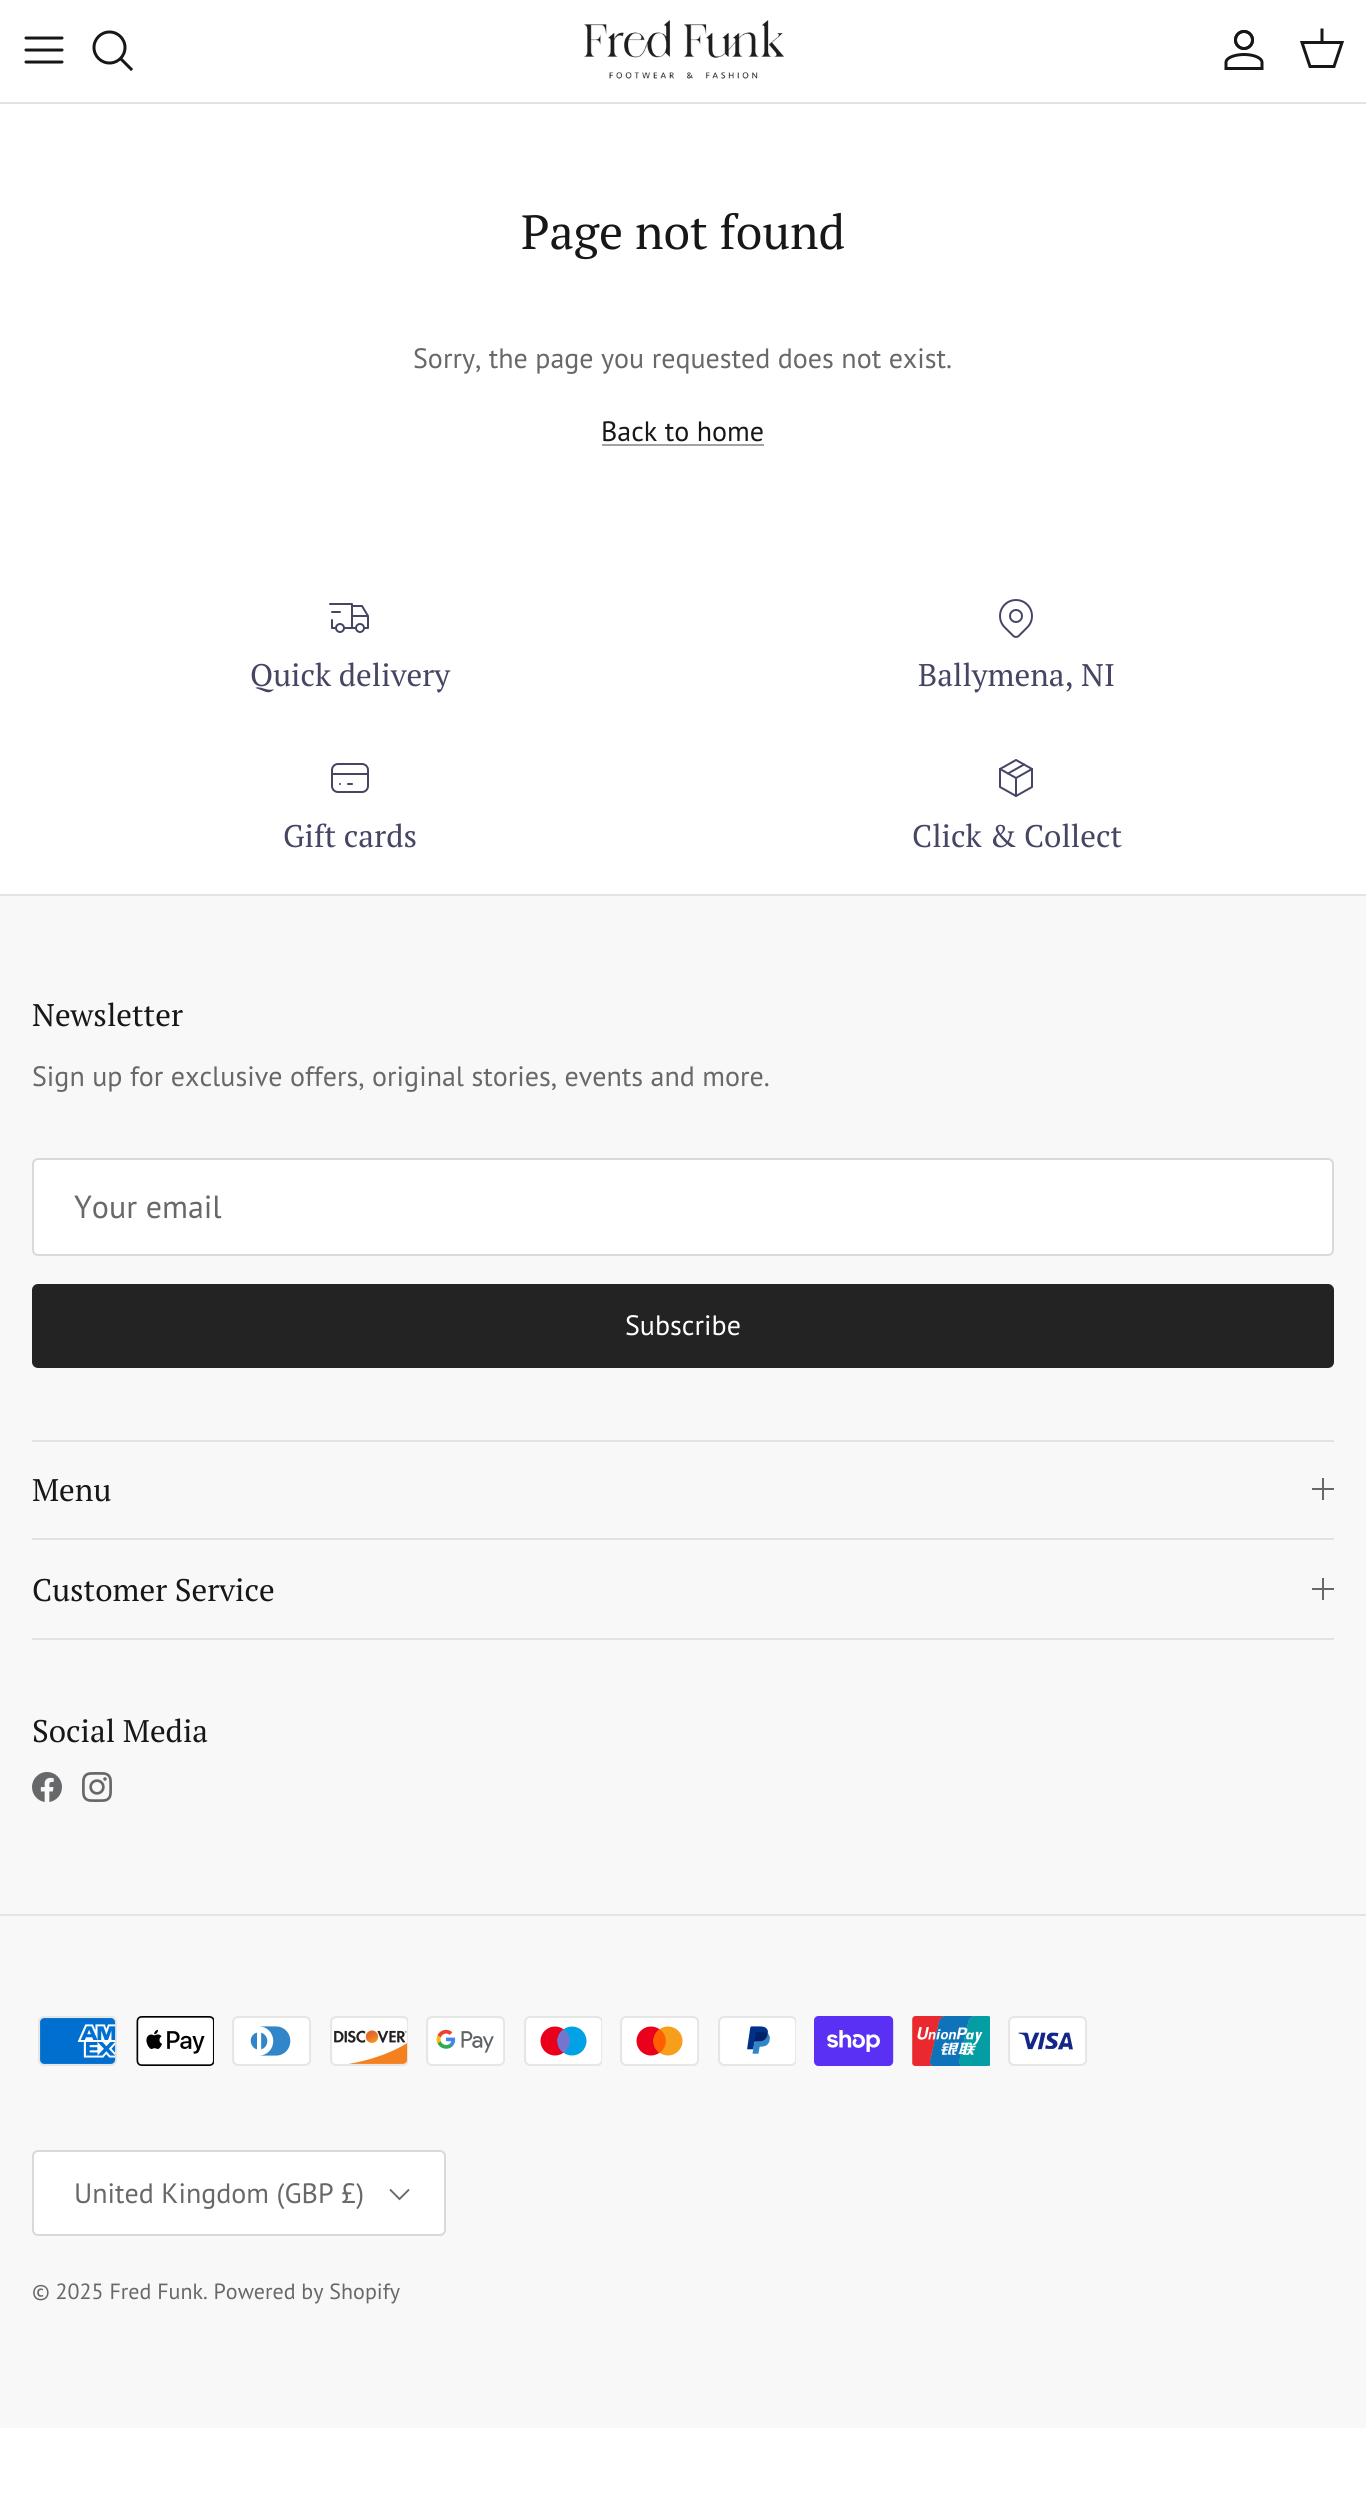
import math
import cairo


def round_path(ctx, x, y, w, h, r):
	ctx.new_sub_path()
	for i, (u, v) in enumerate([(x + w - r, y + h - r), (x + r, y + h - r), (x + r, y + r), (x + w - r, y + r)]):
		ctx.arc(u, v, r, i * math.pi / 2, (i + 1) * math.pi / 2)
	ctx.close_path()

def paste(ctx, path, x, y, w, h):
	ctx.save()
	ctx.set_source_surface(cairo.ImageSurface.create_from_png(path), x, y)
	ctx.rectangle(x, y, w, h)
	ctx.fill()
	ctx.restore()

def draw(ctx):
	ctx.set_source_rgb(1, 1, 1)
	ctx.paint()
	ctx.set_source_rgb(0.886, 0.886, 0.886)
	ctx.rectangle(0, 102, 1366, 2)
	ctx.fill()
	ctx.new_path()
	ctx.move_to(26, 50)
	ctx.line_to(62, 50)
	ctx.move_to(26, 38)
	ctx.line_to(62, 38)
	ctx.move_to(26, 62)
	ctx.line_to(62, 62)
	ctx.set_source_rgb(0.09, 0.09, 0.09)
	ctx.set_line_width(3)
	ctx.set_line_cap(cairo.LINE_CAP_ROUND)
	ctx.set_line_join(cairo.LINE_JOIN_ROUND)
	ctx.stroke()
	ctx.arc(109.5, 47.5, 15.5, 0, 2 * math.pi)
	ctx.set_line_cap(cairo.LINE_CAP_BUTT)
	ctx.set_line_join(cairo.LINE_JOIN_MITER)
	ctx.stroke()
	ctx.new_path()
	ctx.move_to(122, 60)
	ctx.line_to(131, 69)
	ctx.set_line_cap(cairo.LINE_CAP_SQUARE)
	ctx.stroke()
	paste(ctx, 'media/1.png', 584, 20, 200, 59)
	paste(ctx, 'media/2.png', 1224, 30, 40, 40)
	ctx.new_path()
	ctx.move_to(1302, 42.5)
	ctx.line_to(1342, 42.5)
	ctx.line_to(1334, 66.5)
	ctx.line_to(1310, 66.5)
	ctx.close_path()
	ctx.set_line_cap(cairo.LINE_CAP_BUTT)
	ctx.stroke()
	ctx.new_path()
	ctx.move_to(1322, 42)
	ctx.line_to(1322, 30)
	ctx.set_line_cap(cairo.LINE_CAP_SQUARE)
	ctx.stroke()
	ctx.select_font_face('PT Serif')
	ctx.set_font_size(48)
	ctx.move_to(521, 249)
	ctx.show_text('Page not found')
	ctx.select_font_face('PT Sans')
	ctx.set_font_size(28)
	ctx.set_source_rgb(0.404, 0.408, 0.412)
	ctx.move_to(413, 368)
	ctx.show_text('Sorry, the page you requested does not exist.')
	ctx.set_source_rgb(0.09, 0.09, 0.09)
	ctx.move_to(601, 441)
	ctx.show_text('Back to home')
	ctx.set_source_rgb(0.635, 0.635, 0.635)
	ctx.rectangle(602, 444, 162, 2)
	ctx.fill()
	paste(ctx, 'media/3.png', 329, 603, 40, 30)
	ctx.select_font_face('PT Serif')
	ctx.set_font_size(31.25)
	ctx.set_source_rgb(0.271, 0.271, 0.392)
	ctx.move_to(250, 686)
	ctx.show_text('Quick delivery')
	paste(ctx, 'media/4.png', 999, 599, 34, 39)
	ctx.move_to(918, 686)
	ctx.show_text('Ballymena, NI')
	paste(ctx, 'media/5.png', 331, 763, 38, 30)
	ctx.move_to(283, 847)
	ctx.show_text('Gift cards')
	paste(ctx, 'media/6.png', 999, 759, 34, 38)
	ctx.move_to(912, 847)
	ctx.show_text('Click & Collect')
	ctx.set_source_rgb(0.969, 0.969, 0.973)
	ctx.rectangle(0, 896, 1366, 1532)
	ctx.fill()
	ctx.set_source_rgb(0.894, 0.894, 0.894)
	ctx.rectangle(0, 894, 1366, 2)
	ctx.fill()
	ctx.set_source_rgb(0.09, 0.09, 0.09)
	ctx.move_to(32, 1026)
	ctx.show_text('Newsletter')
	ctx.select_font_face('PT Sans')
	ctx.set_font_size(28)
	ctx.set_source_rgb(0.404, 0.408, 0.412)
	ctx.move_to(32, 1086)
	ctx.show_text('Sign up for exclusive offers, original stories, events and more.')
	ctx.set_source_rgb(1, 1, 1)
	round_path(ctx, 33, 1159, 1300, 96, 5)
	ctx.fill_preserve()
	ctx.set_source_rgb(0.851, 0.851, 0.855)
	ctx.set_line_width(2)
	ctx.set_line_cap(cairo.LINE_CAP_BUTT)
	ctx.stroke()
	ctx.set_font_size(32)
	ctx.set_source_rgb(0.404, 0.408, 0.412)
	ctx.move_to(74, 1218)
	ctx.show_text('Your email')
	ctx.set_source_rgb(0.137, 0.137, 0.137)
	round_path(ctx, 33, 1285, 1300, 82, 5)
	ctx.fill_preserve()
	ctx.stroke()
	ctx.set_font_size(28)
	ctx.set_source_rgb(1, 1, 1)
	ctx.move_to(625, 1335)
	ctx.show_text('Subscribe')
	ctx.set_source_rgb(0.882, 0.886, 0.89)
	ctx.rectangle(32, 1440, 1302, 2)
	ctx.fill()
	ctx.select_font_face('PT Serif')
	ctx.set_font_size(31.25)
	ctx.set_source_rgb(0.09, 0.09, 0.09)
	ctx.move_to(32, 1501)
	ctx.show_text('Menu')
	ctx.set_source_rgb(0.404, 0.408, 0.412)
	ctx.rectangle(1322, 1478, 2, 22)
	ctx.rectangle(1312, 1488, 22, 2)
	ctx.fill()
	ctx.set_source_rgb(0.882, 0.886, 0.89)
	ctx.rectangle(32, 1538, 1302, 2)
	ctx.rectangle(32, 1638, 1302, 2)
	ctx.fill()
	ctx.set_source_rgb(0.09, 0.09, 0.09)
	ctx.move_to(32, 1601)
	ctx.show_text('Customer Service')
	ctx.set_source_rgb(0.404, 0.408, 0.412)
	ctx.rectangle(1322, 1578, 2, 22)
	ctx.fill()
	ctx.rectangle(1312, 1588, 22, 2)
	ctx.fill()
	ctx.set_source_rgb(0.09, 0.09, 0.09)
	ctx.move_to(32, 1742)
	ctx.show_text('Social Media')
	paste(ctx, 'media/7.png', 32, 1772, 30, 30)
	paste(ctx, 'media/8.png', 82, 1772, 30, 30)
	ctx.set_source_rgb(0.894, 0.894, 0.894)
	ctx.rectangle(0, 1914, 1366, 2)
	ctx.fill()
	paste(ctx, 'media/9.png', 38, 2016, 79, 50)
	paste(ctx, 'media/10.png', 136, 2016, 78, 50)
	paste(ctx, 'media/11.png', 232, 2016, 79, 50)
	paste(ctx, 'media/12.png', 330, 2016, 78, 50)
	paste(ctx, 'media/13.png', 426, 2016, 79, 50)
	paste(ctx, 'media/14.png', 524, 2016, 78, 50)
	paste(ctx, 'media/15.png', 620, 2016, 79, 50)
	paste(ctx, 'media/16.png', 718, 2016, 78, 50)
	paste(ctx, 'media/17.png', 814, 2016, 80, 50)
	paste(ctx, 'media/18.png', 912, 2016, 78, 50)
	paste(ctx, 'media/19.png', 1008, 2016, 79, 50)
	ctx.set_source_rgb(1, 1, 1)
	round_path(ctx, 33, 2151, 412, 84, 5)
	ctx.fill_preserve()
	ctx.set_source_rgb(0.851, 0.851, 0.855)
	ctx.stroke()
	ctx.select_font_face('PT Sans')
	ctx.set_font_size(28)
	ctx.set_source_rgb(0.404, 0.408, 0.412)
	ctx.move_to(74, 2203)
	ctx.show_text('United Kingdom (GBP £)')
	ctx.new_path()
	ctx.move_to(409, 2189.5)
	ctx.line_to(399.5, 2199)
	ctx.line_to(390, 2189.5)
	ctx.set_line_width(1.9)
	ctx.stroke()
	ctx.set_font_size(22)
	ctx.move_to(32, 2299)
	ctx.show_text('© 2025 Fred Funk. Powered by Shopify')


surface = cairo.ImageSurface(cairo.FORMAT_RGB24, 1366, 2507)
ctx = cairo.Context(surface)
options = cairo.FontOptions()
options.set_hint_metrics(cairo.HINT_METRICS_OFF)
options.set_hint_style(cairo.HINT_STYLE_NONE)
ctx.set_font_options(options)
ctx.set_miter_limit(4)
draw(ctx)
surface.write_to_png('image.png')
